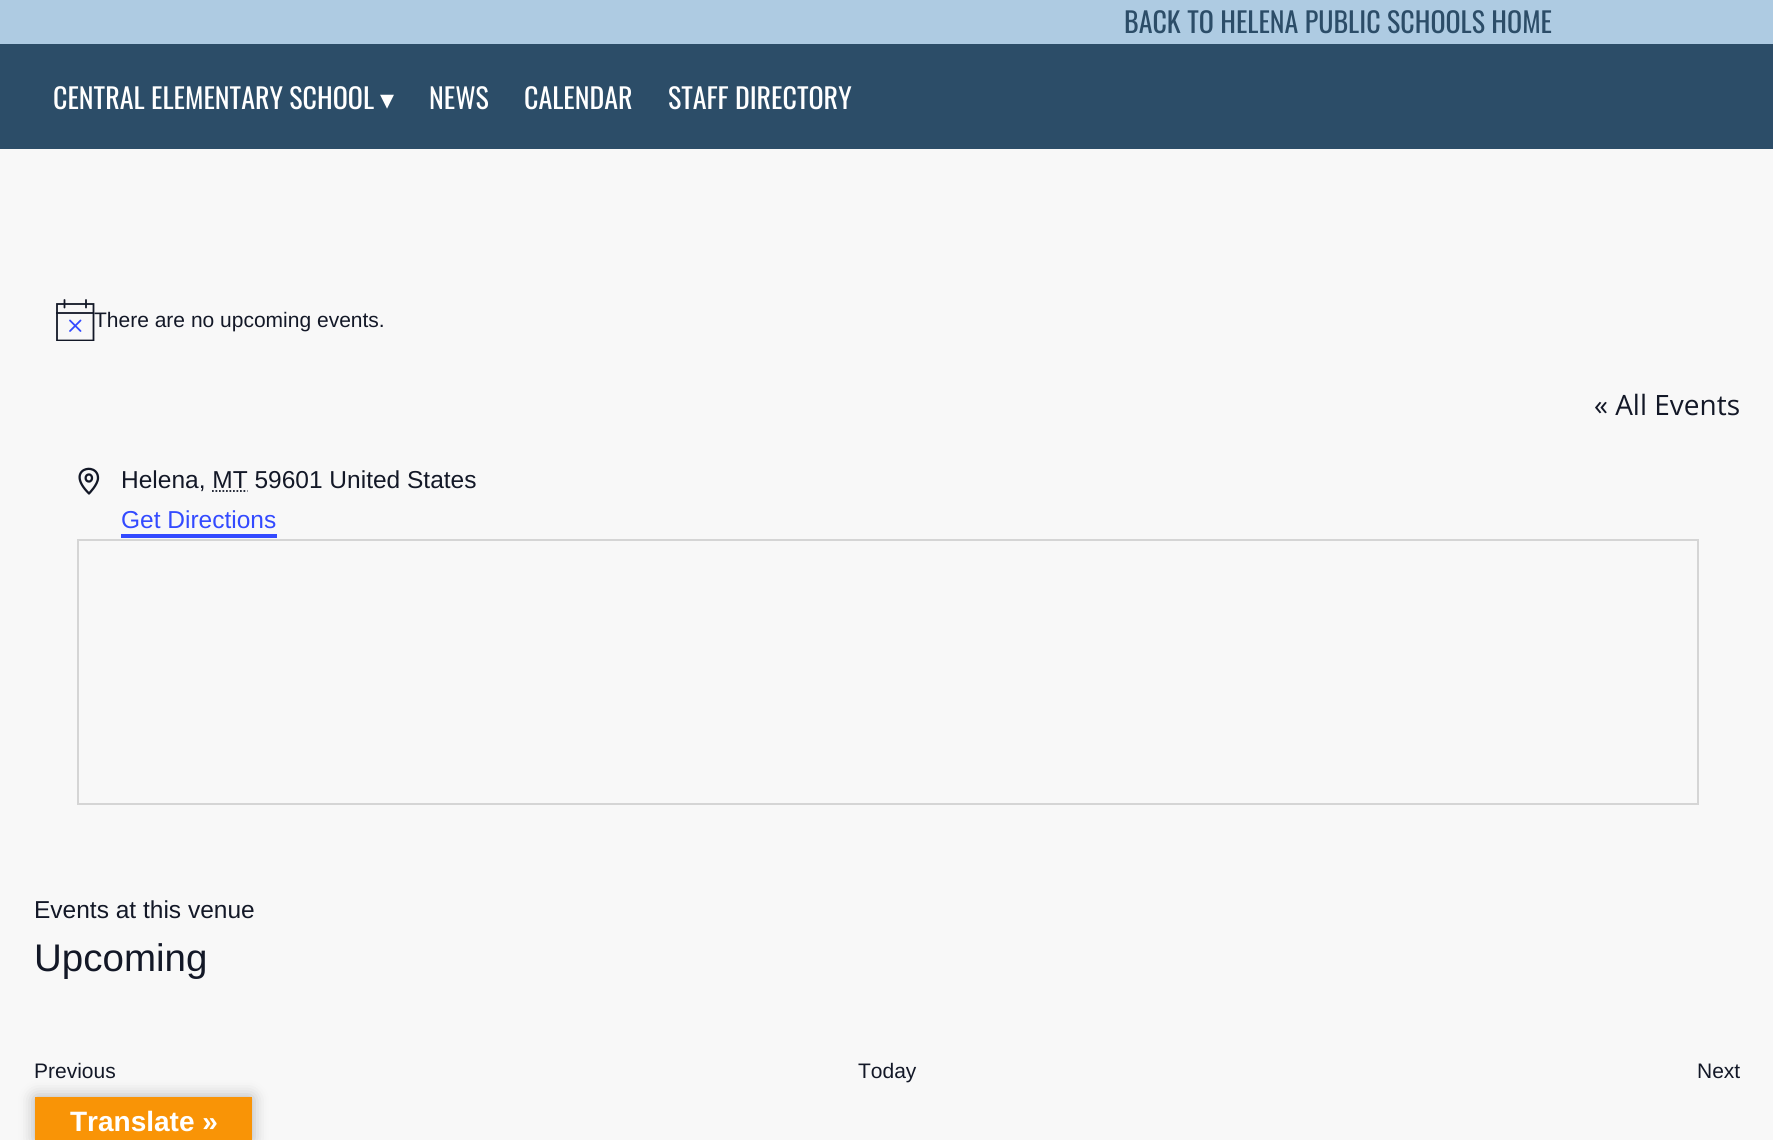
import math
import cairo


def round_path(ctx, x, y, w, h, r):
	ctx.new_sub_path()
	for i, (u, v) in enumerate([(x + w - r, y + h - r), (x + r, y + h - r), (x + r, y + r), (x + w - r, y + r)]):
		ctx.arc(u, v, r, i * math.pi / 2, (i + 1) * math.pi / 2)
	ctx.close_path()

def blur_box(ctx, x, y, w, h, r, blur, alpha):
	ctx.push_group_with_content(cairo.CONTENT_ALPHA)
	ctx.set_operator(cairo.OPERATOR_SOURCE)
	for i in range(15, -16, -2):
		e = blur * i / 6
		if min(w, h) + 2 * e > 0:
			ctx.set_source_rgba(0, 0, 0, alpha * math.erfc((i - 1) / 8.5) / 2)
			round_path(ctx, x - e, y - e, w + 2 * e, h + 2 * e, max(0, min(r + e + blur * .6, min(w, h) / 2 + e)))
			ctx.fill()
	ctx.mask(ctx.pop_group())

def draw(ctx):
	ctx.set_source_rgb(0.969, 0.969, 0.969)
	ctx.paint()
	ctx.set_source_rgb(0.682, 0.796, 0.886)
	ctx.rectangle(0, 0, 1773, 44)
	ctx.fill()
	ctx.select_font_face('Oswald')
	ctx.set_font_size(28)
	ctx.set_source_rgb(0.173, 0.302, 0.408)
	ctx.move_to(1124, 33)
	ctx.show_text('BACK TO HELENA PUBLIC SCHOOLS HOME')
	ctx.rectangle(0, 44, 1773, 105)
	ctx.fill()
	ctx.set_source_rgb(1, 1, 1)
	ctx.move_to(53, 109)
	ctx.show_text('CENTRAL ELEMENTARY SCHOOL')
	ctx.select_font_face('DejaVu Sans')
	ctx.move_to(380, 109)
	ctx.show_text('▾')
	ctx.select_font_face('Oswald')
	for x, y, s in [
		(429, 109, 'NEWS'),
		(524, 109, 'CALENDAR'),
		(668, 109, 'STAFF DIRECTORY'),
	]:
		ctx.move_to(x, y)
		ctx.show_text(s)
	ctx.save()
	ctx.rectangle(56, 299, 39, 42)
	ctx.clip()
	ctx.new_path()
	ctx.move_to(57, 304)
	ctx.line_to(93.5, 304)
	ctx.line_to(93.5, 340.5)
	ctx.line_to(57, 340.5)
	ctx.close_path()
	ctx.set_source_rgb(0.078, 0.094, 0.153)
	ctx.set_line_width(1.8)
	ctx.stroke()
	ctx.restore()
	ctx.new_path()
	ctx.move_to(70, 320.5)
	ctx.line_to(80.5, 331)
	ctx.move_to(80.5, 320.5)
	ctx.line_to(70, 331)
	ctx.set_source_rgb(0.2, 0.29, 1)
	ctx.set_line_width(1.8)
	ctx.set_line_cap(cairo.LINE_CAP_ROUND)
	ctx.stroke()
	ctx.new_path()
	ctx.move_to(64.5, 300)
	ctx.line_to(64.5, 307.5)
	ctx.move_to(86, 300)
	ctx.line_to(86, 307.5)
	ctx.set_source_rgb(0.078, 0.094, 0.153)
	ctx.stroke()
	ctx.set_source_rgba(0.078, 0.094, 0.153, 0.9)
	ctx.rectangle(56, 312, 38, 2)
	ctx.fill()
	ctx.select_font_face('Liberation Sans')
	ctx.set_font_size(21)
	ctx.set_source_rgb(0.078, 0.094, 0.153)
	ctx.move_to(94, 327)
	ctx.show_text('There are no upcoming events.')
	ctx.select_font_face('Open Sans')
	ctx.set_font_size(28)
	ctx.move_to(1594, 415)
	ctx.show_text('« All Events')
	ctx.new_path()
	ctx.move_to(98, 478)
	ctx.curve_to(98, 484.5, 89, 493.5, 89, 493.5)
	ctx.curve_to(63.5, 468.5, 98, 461, 98, 478)
	ctx.close_path()
	ctx.move_to(89, 481.5)
	ctx.curve_to(93, 481.5, 93, 474.5, 89, 474.5)
	ctx.curve_to(84.5, 474.5, 84.5, 481.5, 89, 481.5)
	ctx.close_path()
	ctx.set_line_width(2.3)
	ctx.set_line_join(cairo.LINE_JOIN_ROUND)
	ctx.stroke()
	ctx.select_font_face('Liberation Sans')
	ctx.set_font_size(24.5)
	ctx.move_to(121, 488)
	ctx.show_text('Helena, MT 59601 United States')
	ctx.new_path()
	ctx.move_to(212, 491)
	ctx.line_to(247.5, 491)
	ctx.set_line_width(1.8)
	ctx.set_line_cap(cairo.LINE_CAP_BUTT)
	ctx.set_line_join(cairo.LINE_JOIN_MITER)
	ctx.set_dash([1.75, 1.75])
	ctx.stroke()
	ctx.set_source_rgb(0.2, 0.29, 1)
	ctx.move_to(121, 528)
	ctx.show_text('Get Directions')
	ctx.rectangle(121, 534, 156, 4)
	ctx.fill()
	ctx.rectangle(78, 540, 1620, 264)
	ctx.set_source_rgb(0.835, 0.835, 0.835)
	ctx.set_line_width(2)
	ctx.set_dash([])
	ctx.stroke()
	ctx.set_source_rgb(0.078, 0.094, 0.153)
	ctx.move_to(34, 918)
	ctx.show_text('Events at this venue')
	ctx.set_font_size(38.5)
	ctx.move_to(34, 971)
	ctx.show_text('Upcoming')
	ctx.set_font_size(21)
	for x, y, s in [
		(34, 1078, 'Previous'),
		(858, 1078, 'Today'),
		(1697, 1078, 'Next'),
	]:
		ctx.move_to(x, y)
		ctx.show_text(s)
	ctx.set_source_rgb(0, 0, 0)
	blur_box(ctx, 35, 1097, 217, 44, 0, 8, 0.3)
	ctx.set_source_rgb(0.973, 0.58, 0.024)
	ctx.rectangle(35, 1097, 217, 43)
	ctx.fill()
	ctx.select_font_face('Liberation Sans', cairo.FONT_SLANT_NORMAL, cairo.FONT_WEIGHT_BOLD)
	ctx.set_font_size(28)
	ctx.set_source_rgb(1, 1, 1)
	ctx.move_to(70, 1131)
	ctx.show_text('Translate »')


surface = cairo.ImageSurface(cairo.FORMAT_RGB24, 1773, 1140)
ctx = cairo.Context(surface)
options = cairo.FontOptions()
options.set_hint_metrics(cairo.HINT_METRICS_OFF)
options.set_hint_style(cairo.HINT_STYLE_NONE)
ctx.set_font_options(options)
ctx.set_miter_limit(4)
draw(ctx)
surface.write_to_png('image.png')
